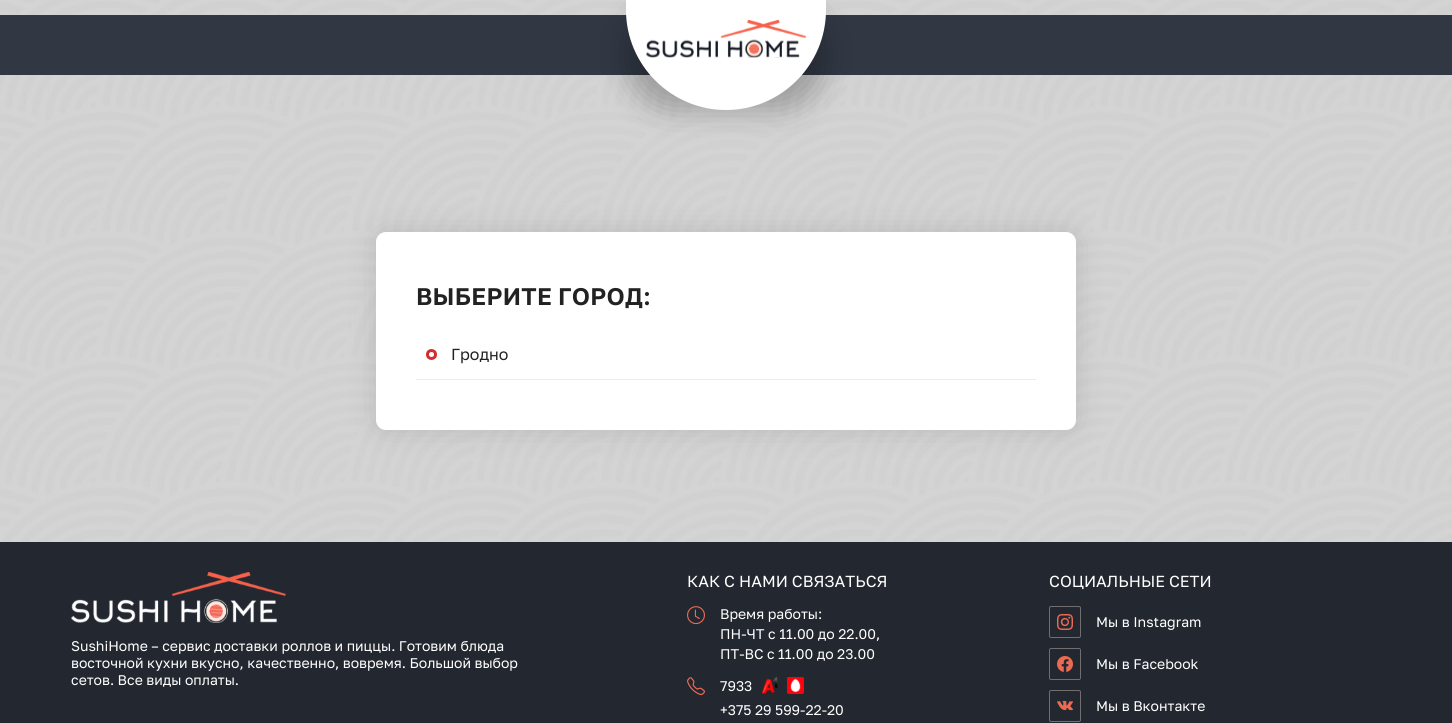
import math
import cairo


def write_spaced(ctx, x, y, s, letter, word):
	ctx.move_to(x, y)
	for ch in s:
		ctx.show_text(ch)
		ctx.rel_move_to(letter + word * (ch == ' '), 0)

def round_path(ctx, x, y, w, h, r):
	ctx.new_sub_path()
	for i, (u, v) in enumerate([(x + w - r, y + h - r), (x + r, y + h - r), (x + r, y + r), (x + w - r, y + r)]):
		ctx.arc(u, v, r, i * math.pi / 2, (i + 1) * math.pi / 2)
	ctx.close_path()

def blur_box(ctx, x, y, w, h, r, blur, alpha):
	ctx.push_group_with_content(cairo.CONTENT_ALPHA)
	ctx.set_operator(cairo.OPERATOR_SOURCE)
	for i in range(15, -16, -2):
		e = blur * i / 6
		if min(w, h) + 2 * e > 0:
			ctx.set_source_rgba(0, 0, 0, alpha * math.erfc((i - 1) / 8.5) / 2)
			round_path(ctx, x - e, y - e, w + 2 * e, h + 2 * e, max(0, min(r + e + blur * .6, min(w, h) / 2 + e)))
			ctx.fill()
	ctx.mask(ctx.pop_group())

def paste(ctx, path, x, y, w, h):
	ctx.save()
	ctx.set_source_surface(cairo.ImageSurface.create_from_png(path), x, y)
	ctx.rectangle(x, y, w, h)
	ctx.fill()
	ctx.restore()

def draw(ctx):
	ctx.set_source_rgb(1, 1, 1)
	ctx.paint()
	paste(ctx, 'media/2.png', 0, 0, 1452, 542)
	ctx.set_source_rgb(0.192, 0.22, 0.267)
	ctx.rectangle(0, 15, 1452, 60)
	ctx.fill()
	ctx.set_source_rgb(0, 0, 0)
	blur_box(ctx, 626, 0, 200, 110, 100, 15, 0.26)
	ctx.set_source_rgb(1, 1, 1)
	ctx.new_path()
	ctx.move_to(626, 0)
	ctx.line_to(826, 0)
	ctx.line_to(826, 10)
	ctx.curve_to(826, 65, 781, 110, 726, 110)
	ctx.curve_to(671, 110, 626, 65, 626, 10)
	ctx.close_path()
	ctx.fill()
	paste(ctx, 'media/1.png', 646, 20, 160, 38)
	ctx.set_source_rgb(0, 0, 0)
	blur_box(ctx, 376, 232, 700, 198, 10, 15, 0.12)
	ctx.set_source_rgb(1, 1, 1)
	round_path(ctx, 376, 232, 700, 198, 10)
	ctx.fill()
	ctx.select_font_face('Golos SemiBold')
	ctx.set_font_size(24)
	ctx.set_source_rgb(0.133, 0.133, 0.133)
	write_spaced(ctx, 416, 305, 'ВЫБЕРИТЕ ГОРОД:', 0.3, 0)
	ctx.set_source_rgb(0.922, 0.922, 0.922)
	ctx.rectangle(416, 379, 620, 1)
	ctx.fill()
	ctx.arc(431.5, 354.5, 4, 0, 2 * math.pi)
	ctx.set_source_rgb(0.824, 0.18, 0.18)
	ctx.set_line_width(3)
	ctx.stroke()
	ctx.select_font_face('Golos Text')
	ctx.set_font_size(16)
	ctx.set_source_rgb(0.133, 0.133, 0.133)
	ctx.move_to(451, 360)
	ctx.show_text('Гродно')
	ctx.set_source_rgb(0.133, 0.153, 0.188)
	ctx.rectangle(0, 542, 1452, 181)
	ctx.fill()
	paste(ctx, 'media/3.png', 71, 572, 215, 51)
	ctx.set_font_size(14)
	ctx.set_source_rgb(1, 1, 1)
	for x, y, s in [
		(71, 651, 'SushiHome – сервис доставки роллов и пиццы. Готовим блюда'),
		(71, 668, 'восточной кухни вкусно, качественно, вовремя. Большой выбор'),
		(71, 685, 'сетов. Все виды оплаты.'),
	]:
		ctx.move_to(x, y)
		ctx.show_text(s)
	ctx.set_font_size(16)
	ctx.move_to(687, 587)
	ctx.show_text('КАК С НАМИ СВЯЗАТЬСЯ')
	paste(ctx, 'media/4.png', 687, 606, 18, 19)
	ctx.set_font_size(14)
	for x, y, s in [
		(720, 619, 'Время работы:'),
		(720, 639, 'ПН-ЧТ с 11.00 до 22.00,'),
		(720, 659, 'ПТ-ВС с 11.00 до 23.00'),
	]:
		ctx.move_to(x, y)
		ctx.show_text(s)
	paste(ctx, 'media/5.png', 687, 677, 18, 19)
	ctx.move_to(720, 691)
	ctx.show_text('7933')
	paste(ctx, 'media/6.png', 761, 677, 17, 17)
	paste(ctx, 'media/7.png', 787, 677, 17, 17)
	ctx.move_to(720, 715)
	ctx.show_text('+375 29 599-22-20')
	ctx.set_font_size(16)
	ctx.move_to(1049, 587)
	ctx.show_text('СОЦИАЛЬНЫЕ СЕТИ')
	round_path(ctx, 1049.5, 606.5, 31, 31, 1.5)
	ctx.set_source_rgb(0.439, 0.431, 0.431)
	ctx.set_line_width(1)
	ctx.stroke()
	paste(ctx, 'media/8.png', 1057, 614, 16, 16)
	ctx.set_font_size(14)
	ctx.set_source_rgb(1, 1, 1)
	ctx.move_to(1096, 627)
	ctx.show_text('Мы в Instagram')
	round_path(ctx, 1049.5, 648.5, 31, 31, 1.5)
	ctx.set_source_rgb(0.439, 0.431, 0.431)
	ctx.stroke()
	paste(ctx, 'media/9.png', 1057, 656, 16, 16)
	ctx.set_source_rgb(1, 1, 1)
	ctx.move_to(1096, 669)
	ctx.show_text('Мы в Facebook')
	round_path(ctx, 1049.5, 690.5, 31, 31, 1.5)
	ctx.set_source_rgb(0.439, 0.431, 0.431)
	ctx.stroke()
	paste(ctx, 'media/10.png', 1057, 700, 16, 11)
	ctx.set_source_rgb(1, 1, 1)
	ctx.move_to(1096, 711)
	ctx.show_text('Мы в Вконтакте')


surface = cairo.ImageSurface(cairo.FORMAT_RGB24, 1452, 723)
ctx = cairo.Context(surface)
options = cairo.FontOptions()
options.set_hint_metrics(cairo.HINT_METRICS_OFF)
options.set_hint_style(cairo.HINT_STYLE_NONE)
ctx.set_font_options(options)
ctx.set_miter_limit(4)
draw(ctx)
surface.write_to_png('image.png')
